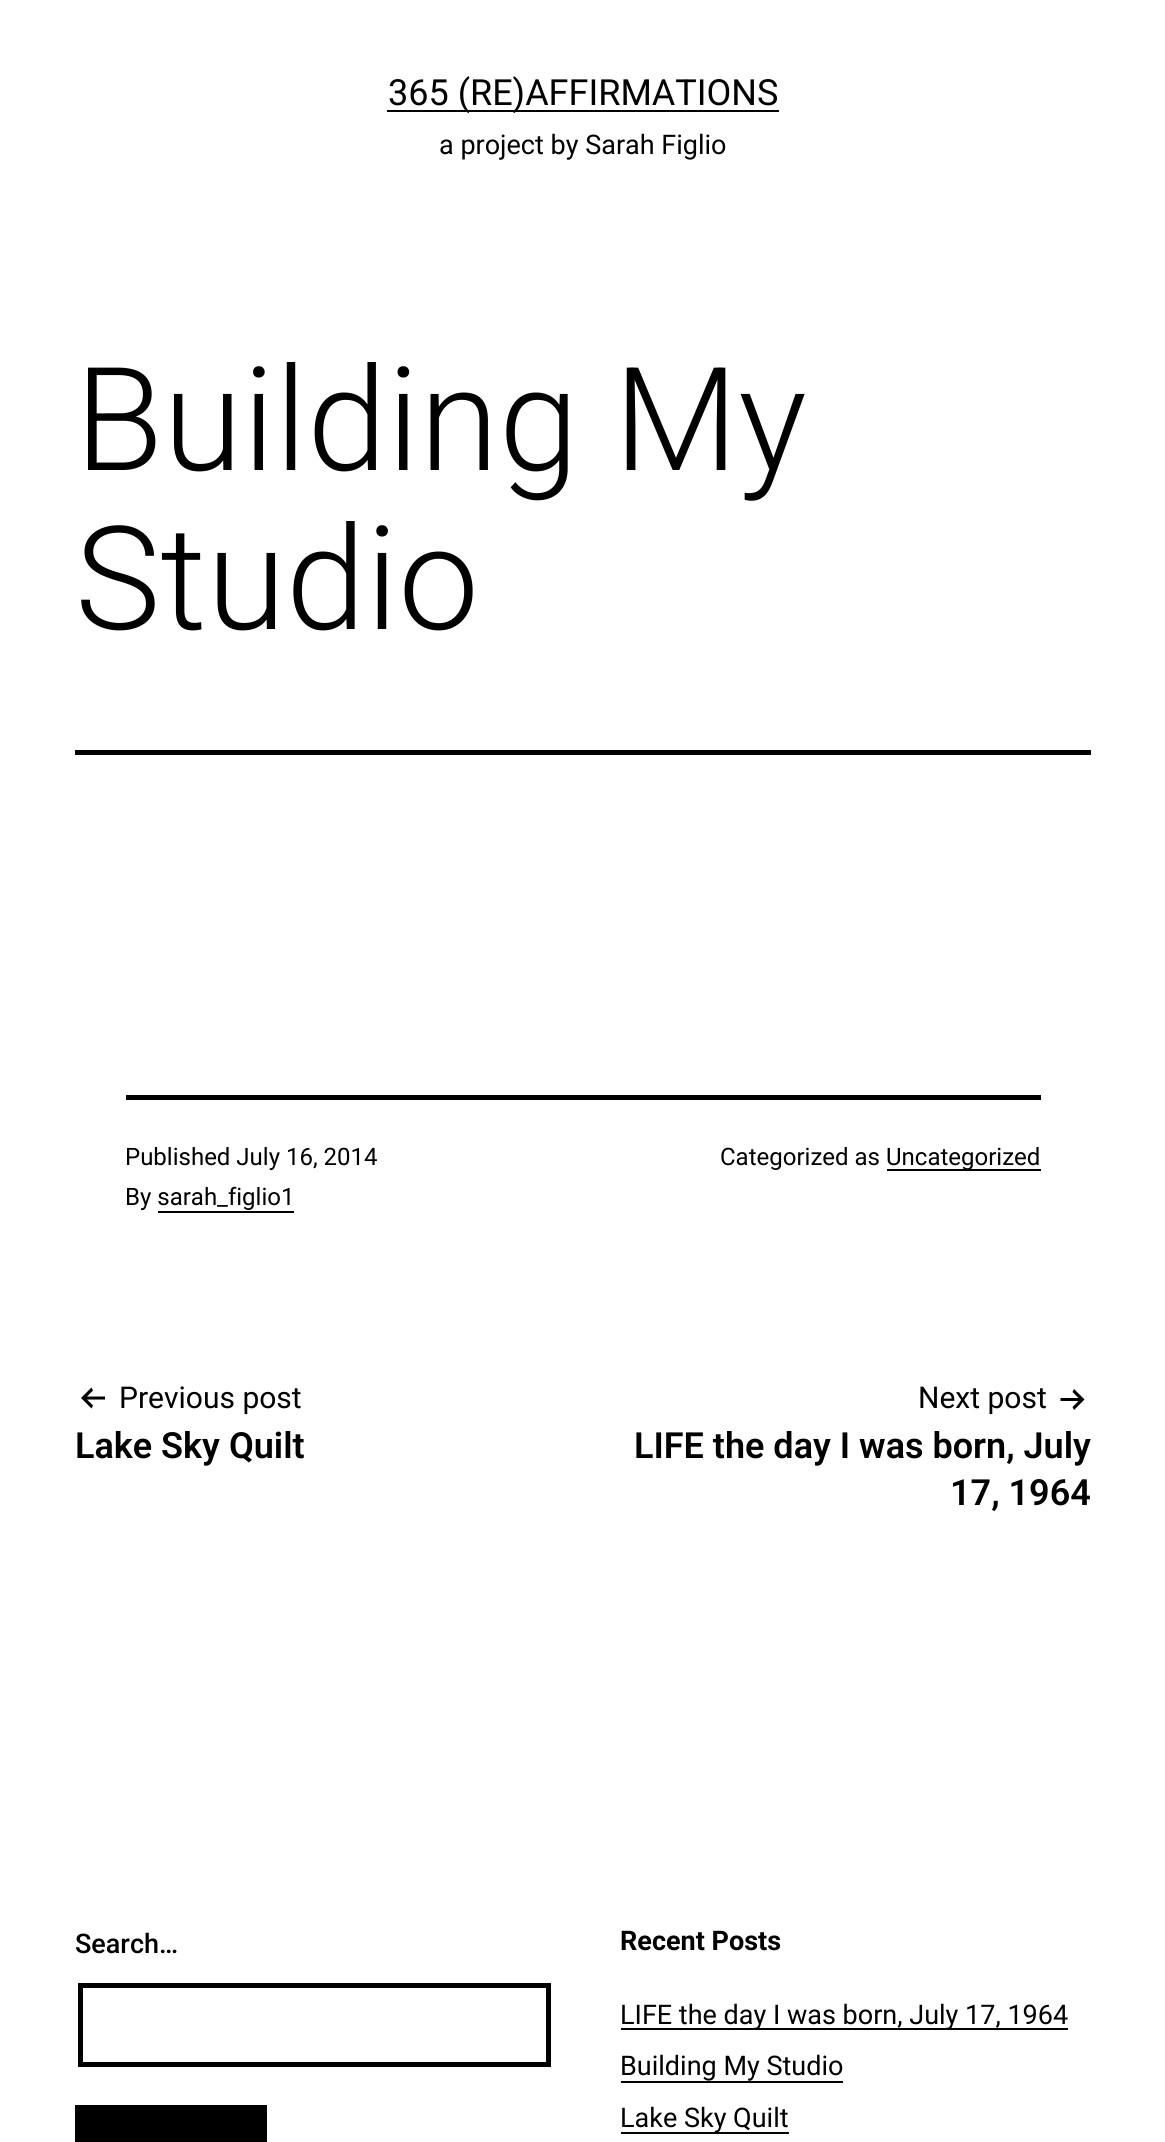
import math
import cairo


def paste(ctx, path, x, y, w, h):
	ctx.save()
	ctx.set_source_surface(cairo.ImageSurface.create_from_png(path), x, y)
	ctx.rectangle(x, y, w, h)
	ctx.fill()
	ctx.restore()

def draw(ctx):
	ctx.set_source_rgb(1, 1, 1)
	ctx.paint()
	ctx.set_source_rgb(0, 0, 0)
	ctx.rectangle(387, 110, 392, 2)
	ctx.fill()
	ctx.select_font_face('Roboto')
	ctx.set_font_size(36)
	ctx.move_to(388, 105)
	ctx.show_text('365 (RE)AFFIRMATIONS')
	ctx.set_font_size(27)
	ctx.move_to(439, 154)
	ctx.show_text('a project by Sarah Figlio')
	ctx.rectangle(75, 750, 1016, 5)
	ctx.fill()
	ctx.select_font_face('Roboto Light')
	ctx.set_font_size(144)
	ctx.move_to(75, 470)
	ctx.show_text('Building My')
	ctx.move_to(75, 629)
	ctx.show_text('Studio')
	ctx.rectangle(126, 1095, 915, 5)
	ctx.fill()
	ctx.select_font_face('Roboto')
	ctx.set_font_size(24)
	ctx.move_to(125, 1165)
	ctx.show_text('Published July 16, 2014')
	ctx.move_to(125, 1205)
	ctx.show_text('By sarah_figlio1')
	ctx.rectangle(158, 1211, 136, 2)
	ctx.fill()
	ctx.move_to(720, 1165)
	ctx.show_text('Categorized as')
	ctx.rectangle(887, 1169, 154, 2)
	ctx.fill()
	ctx.move_to(886, 1165)
	ctx.show_text('Uncategorized')
	paste(ctx, 'media/1.png', 81, 1387, 24, 22)
	ctx.set_font_size(30)
	ctx.move_to(119, 1408)
	ctx.show_text('Previous post')
	ctx.select_font_face('Roboto SemiBold')
	ctx.set_font_size(36)
	ctx.move_to(75, 1458)
	ctx.show_text('Lake Sky Quilt')
	ctx.select_font_face('Roboto')
	ctx.set_font_size(30)
	ctx.move_to(918, 1408)
	ctx.show_text('Next post')
	paste(ctx, 'media/2.png', 1060, 1389, 25, 21)
	ctx.select_font_face('Roboto SemiBold')
	ctx.set_font_size(36)
	ctx.move_to(634, 1458)
	ctx.show_text('LIFE the day I was born, July')
	ctx.move_to(950, 1505)
	ctx.show_text('17, 1964')
	ctx.select_font_face('Roboto Medium')
	ctx.set_font_size(27)
	ctx.move_to(75, 1953)
	ctx.show_text('Search…')
	ctx.rectangle(80.5, 1985.5, 468, 79)
	ctx.set_line_width(5)
	ctx.stroke()
	ctx.rectangle(75, 2105, 192, 37)
	ctx.fill()
	ctx.select_font_face('Roboto', cairo.FONT_SLANT_NORMAL, cairo.FONT_WEIGHT_BOLD)
	ctx.move_to(620, 1950)
	ctx.show_text('Recent Posts')
	ctx.rectangle(621, 2028, 447, 2)
	ctx.fill()
	ctx.select_font_face('Roboto')
	ctx.move_to(620, 2024)
	ctx.show_text('LIFE the day I was born, July 17, 1964')
	ctx.move_to(620, 2075)
	ctx.show_text('Building My Studio')
	ctx.rectangle(621, 2081, 222, 2)
	ctx.fill()
	ctx.rectangle(621, 2132, 168, 2)
	ctx.fill()
	ctx.move_to(620, 2127)
	ctx.show_text('Lake Sky Quilt')


surface = cairo.ImageSurface(cairo.FORMAT_RGB24, 1165, 2142)
ctx = cairo.Context(surface)
options = cairo.FontOptions()
options.set_hint_metrics(cairo.HINT_METRICS_OFF)
options.set_hint_style(cairo.HINT_STYLE_NONE)
ctx.set_font_options(options)
ctx.set_miter_limit(4)
draw(ctx)
surface.write_to_png('image.png')
